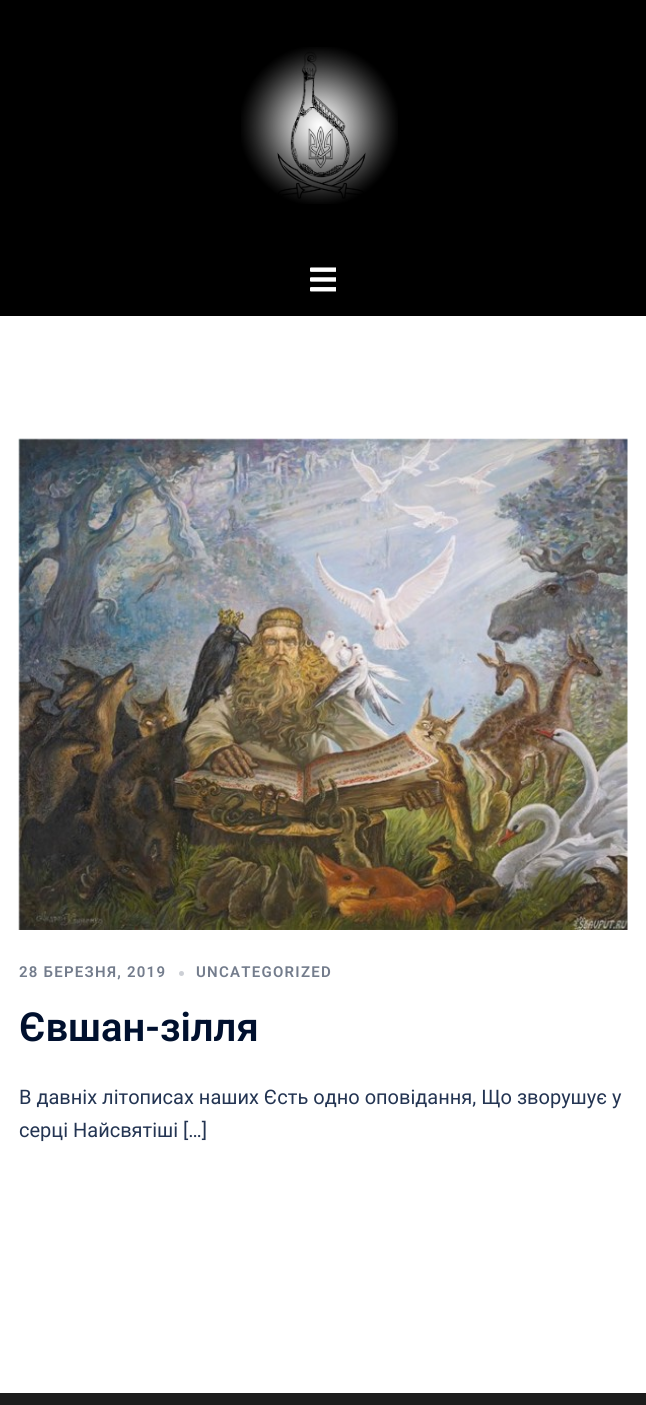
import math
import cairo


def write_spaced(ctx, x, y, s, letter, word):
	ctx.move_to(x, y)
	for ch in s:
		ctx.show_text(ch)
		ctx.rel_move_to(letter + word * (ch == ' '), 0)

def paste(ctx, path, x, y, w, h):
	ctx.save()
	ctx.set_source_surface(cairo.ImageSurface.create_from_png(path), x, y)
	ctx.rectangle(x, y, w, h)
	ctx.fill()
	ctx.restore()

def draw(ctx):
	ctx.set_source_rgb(1, 1, 1)
	ctx.paint()
	ctx.set_source_rgb(0, 0, 0)
	ctx.rectangle(0, 0, 646, 316)
	ctx.fill()
	paste(ctx, 'media/1.png', 241, 47, 157, 157)
	paste(ctx, 'media/2.png', 310, 267, 26, 25)
	paste(ctx, 'media/3.png', 18, 438, 610, 492)
	ctx.select_font_face('Roboto SemiBold')
	ctx.set_font_size(15)
	ctx.set_source_rgb(0.451, 0.486, 0.549)
	write_spaced(ctx, 19, 977, '28 БЕРЕЗНЯ, 2019', 1.25, 0)
	ctx.set_source_rgb(0.8, 0.812, 0.835)
	ctx.new_path()
	ctx.arc(181.5, 973.5, 2.5, 0, 2 * math.pi)
	ctx.fill()
	ctx.set_source_rgb(0.451, 0.486, 0.549)
	write_spaced(ctx, 196, 977, 'UNCATEGORIZED', 1.25, 0)
	ctx.set_font_size(40)
	ctx.set_source_rgb(0, 0.063, 0.18)
	ctx.move_to(19, 1041)
	ctx.show_text('Євшан-зілля')
	ctx.select_font_face('Roboto')
	ctx.set_font_size(20)
	ctx.set_source_rgb(0.137, 0.204, 0.322)
	ctx.move_to(19, 1104)
	ctx.show_text('В давніх літописах наших Єсть одно оповідання, Що зворушує у')
	ctx.move_to(19, 1137)
	ctx.show_text('серці Найсвятіші […]')
	ctx.set_source_rgb(0.11, 0.11, 0.11)
	ctx.rectangle(0, 1393, 646, 12)
	ctx.fill()


surface = cairo.ImageSurface(cairo.FORMAT_RGB24, 646, 1405)
ctx = cairo.Context(surface)
options = cairo.FontOptions()
options.set_hint_metrics(cairo.HINT_METRICS_OFF)
options.set_hint_style(cairo.HINT_STYLE_NONE)
ctx.set_font_options(options)
ctx.set_miter_limit(4)
draw(ctx)
surface.write_to_png('image.png')
